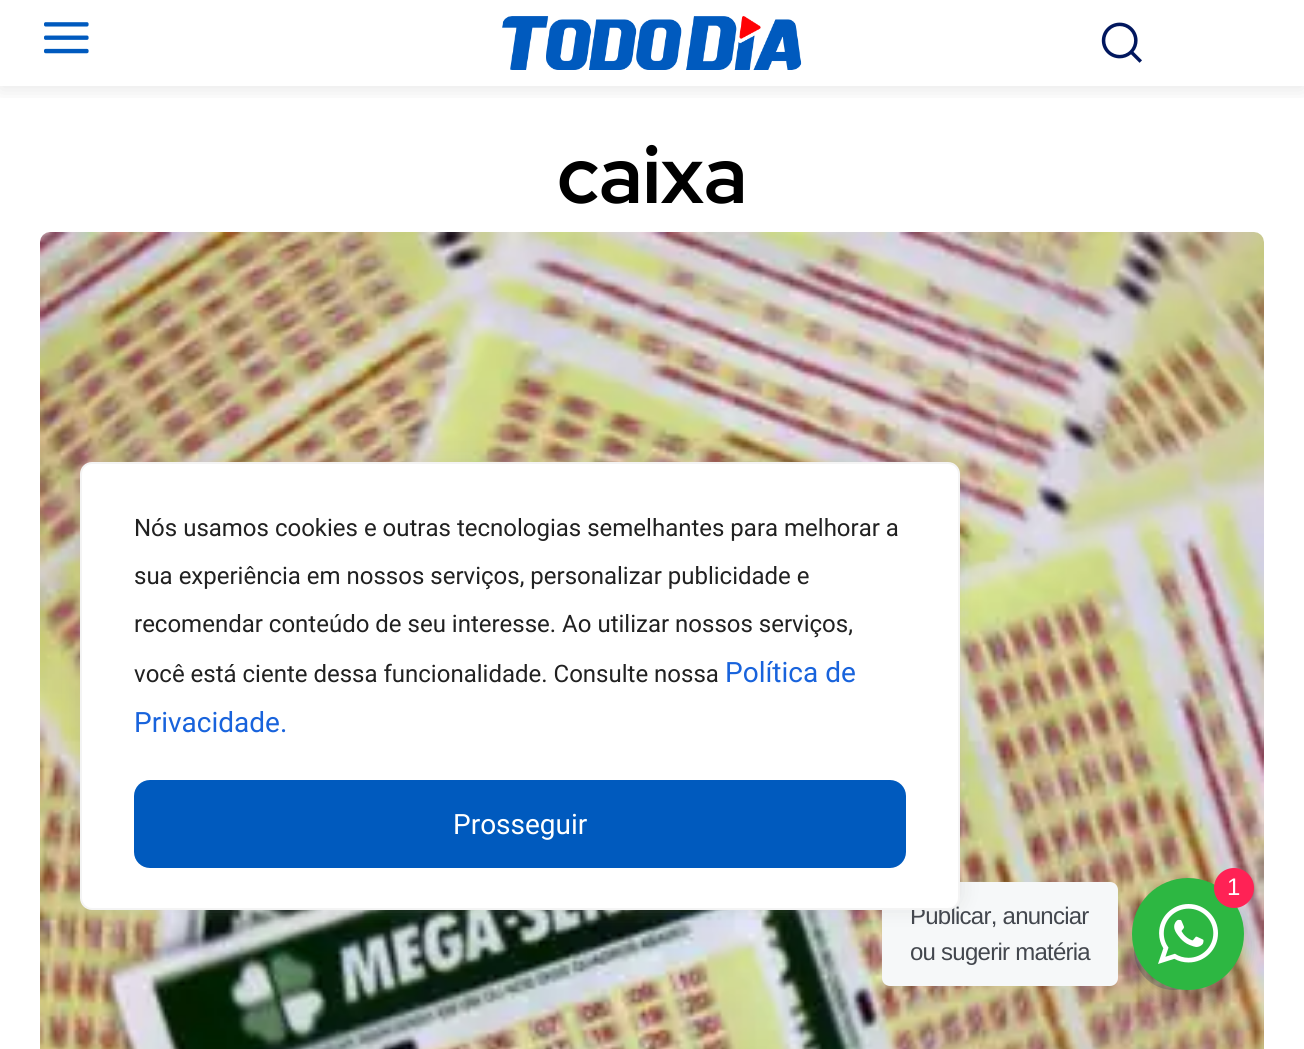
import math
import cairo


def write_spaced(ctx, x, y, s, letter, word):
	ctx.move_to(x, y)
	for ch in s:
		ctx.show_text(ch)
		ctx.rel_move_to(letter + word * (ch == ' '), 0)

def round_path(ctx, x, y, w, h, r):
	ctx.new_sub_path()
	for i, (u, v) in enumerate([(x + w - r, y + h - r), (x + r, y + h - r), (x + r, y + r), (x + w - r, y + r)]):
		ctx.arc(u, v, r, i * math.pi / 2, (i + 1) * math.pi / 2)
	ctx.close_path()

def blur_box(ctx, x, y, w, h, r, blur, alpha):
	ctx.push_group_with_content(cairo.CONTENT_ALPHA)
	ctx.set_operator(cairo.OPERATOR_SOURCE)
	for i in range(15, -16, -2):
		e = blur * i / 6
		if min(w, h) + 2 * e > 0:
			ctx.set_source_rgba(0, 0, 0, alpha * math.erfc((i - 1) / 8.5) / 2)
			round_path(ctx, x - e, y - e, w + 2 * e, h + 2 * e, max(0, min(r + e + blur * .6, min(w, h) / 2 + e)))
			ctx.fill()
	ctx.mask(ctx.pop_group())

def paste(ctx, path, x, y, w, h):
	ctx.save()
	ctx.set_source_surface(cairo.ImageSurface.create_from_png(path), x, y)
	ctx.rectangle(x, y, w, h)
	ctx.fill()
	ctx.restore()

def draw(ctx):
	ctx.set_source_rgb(1, 1, 1)
	ctx.paint()
	paste(ctx, 'media/1.png', 44, 22, 45, 32)
	paste(ctx, 'media/2.png', 502, 16, 300, 54)
	paste(ctx, 'media/3.png', 1101, 22, 41, 41)
	ctx.save()
	ctx.rectangle(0, 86, 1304, 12)
	ctx.clip()
	ctx.set_source_rgb(0, 0, 0)
	blur_box(ctx, 0, 4, 1304, 86, 0, 10, 0.09)
	ctx.restore()
	ctx.select_font_face('Red Hat Display', cairo.FONT_SLANT_NORMAL, cairo.FONT_WEIGHT_BOLD)
	ctx.set_font_size(80)
	ctx.set_source_rgb(0, 0, 0)
	ctx.move_to(557, 203)
	ctx.show_text('caixa')
	paste(ctx, 'media/4.png', 40, 232, 1224, 817)
	ctx.set_source_rgba(0.004, 0.09, 0.369, 0.2)
	ctx.arc(1174, 950, 40, 0, 2 * math.pi)
	ctx.fill()
	ctx.set_source_rgb(0, 0, 0)
	blur_box(ctx, 1128, 886, 120, 120, 60, 8, 0.14)
	ctx.set_source_rgb(0.961, 0.969, 0.976)
	round_path(ctx, 882, 882, 236, 104, 8)
	ctx.fill()
	ctx.set_source_rgb(0.675, 0.671, 0.671)
	blur_box(ctx, 80, 460, 880, 448, 12, 10, 0.3)
	ctx.select_font_face('Liberation Sans')
	ctx.set_font_size(24)
	ctx.set_source_rgb(0.263, 0.278, 0.306)
	write_spaced(ctx, 910, 924, 'Publicar, anunciar', -0.75, 0)
	ctx.set_source_rgb(1, 1, 1)
	round_path(ctx, 81, 463, 878, 446, 11)
	ctx.fill_preserve()
	ctx.set_source_rgb(0.957, 0.957, 0.957)
	ctx.stroke()
	ctx.select_font_face('Roboto')
	ctx.set_source_rgb(0.129, 0.129, 0.129)
	for x, y, s in [
		(134, 536, 'Nós usamos cookies e outras tecnologias semelhantes para melhorar a'),
		(134, 584, 'sua experiência em nossos serviços, personalizar publicidade e'),
		(134, 632, 'recomendar conteúdo de seu interesse. Ao utilizar nossos serviços,'),
		(134, 682, 'você está ciente dessa funcionalidade. Consulte nossa'),
	]:
		ctx.move_to(x, y)
		ctx.show_text(s)
	ctx.set_font_size(28)
	ctx.set_source_rgb(0.094, 0.388, 0.863)
	ctx.move_to(725, 682)
	ctx.show_text('Política de')
	ctx.move_to(134, 732)
	ctx.show_text('Privacidade.')
	ctx.set_source_rgb(0, 0.353, 0.745)
	round_path(ctx, 136, 782, 768, 84, 14)
	ctx.fill_preserve()
	ctx.set_line_width(4)
	ctx.stroke()
	ctx.set_source_rgb(1, 1, 1)
	ctx.move_to(453, 834)
	ctx.show_text('Prosseguir')
	ctx.set_source_rgb(0.176, 0.718, 0.259)
	ctx.new_path()
	ctx.arc(1188, 934, 56, 0, 2 * math.pi)
	ctx.fill()
	ctx.set_source_rgb(1, 0.133, 0.333)
	ctx.arc(1234, 888, 20, 0, 2 * math.pi)
	ctx.fill()
	paste(ctx, 'media/5.png', 1158, 904, 60, 60)
	ctx.select_font_face('Liberation Sans')
	ctx.set_font_size(24)
	ctx.set_source_rgb(1, 1, 1)
	ctx.move_to(1227, 895)
	ctx.show_text('1')
	ctx.set_source_rgb(0.263, 0.278, 0.306)
	write_spaced(ctx, 910, 960, 'ou sugerir matéria', -0.75, 0)


surface = cairo.ImageSurface(cairo.FORMAT_RGB24, 1304, 1049)
ctx = cairo.Context(surface)
options = cairo.FontOptions()
options.set_hint_metrics(cairo.HINT_METRICS_OFF)
options.set_hint_style(cairo.HINT_STYLE_NONE)
ctx.set_font_options(options)
ctx.set_miter_limit(4)
draw(ctx)
surface.write_to_png('image.png')
